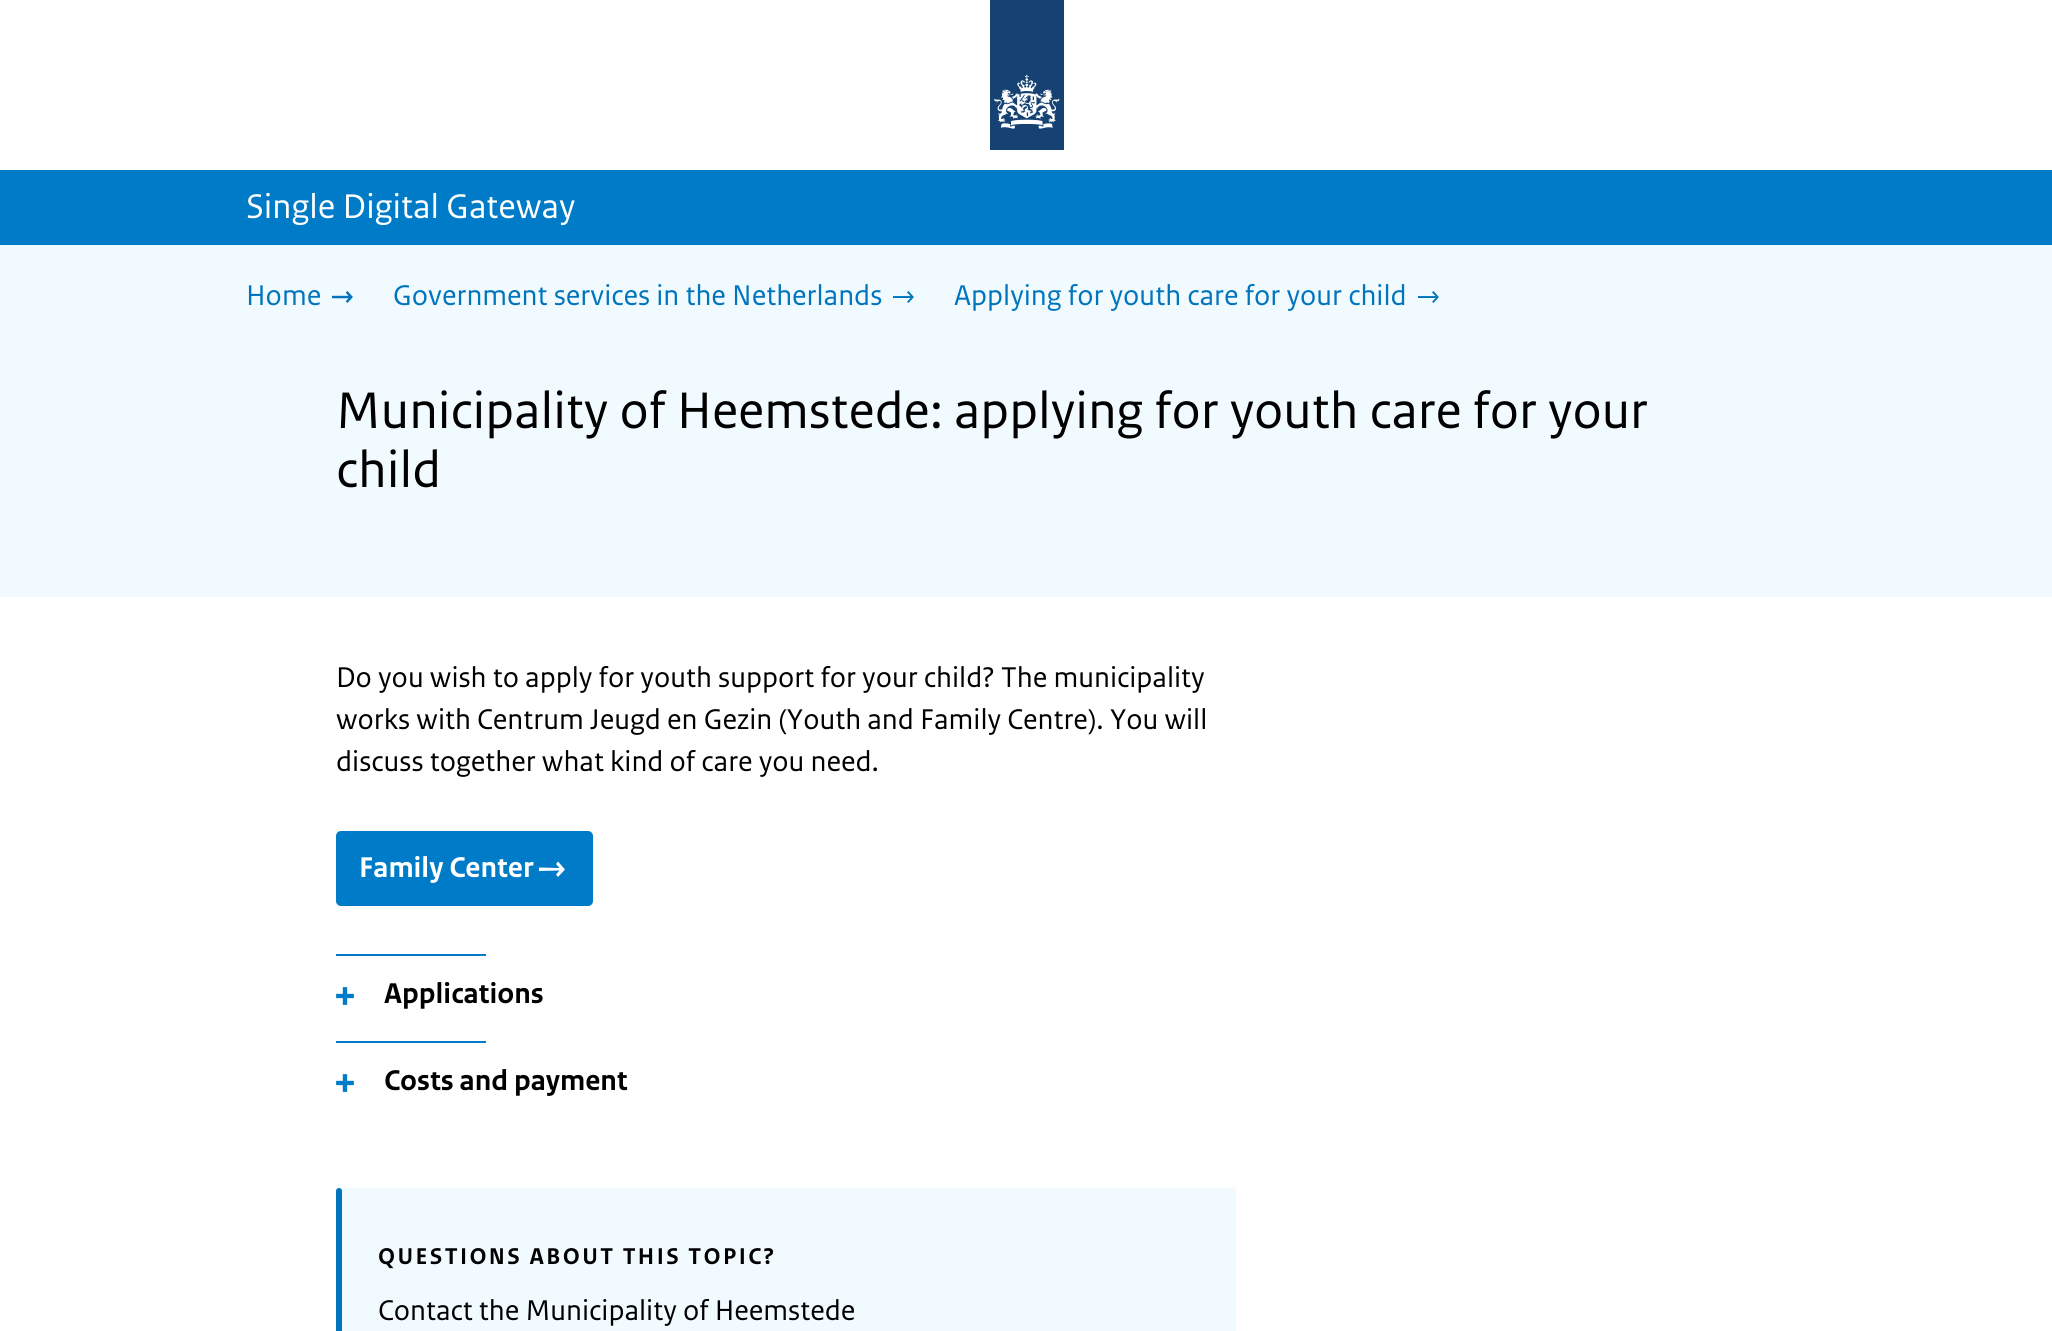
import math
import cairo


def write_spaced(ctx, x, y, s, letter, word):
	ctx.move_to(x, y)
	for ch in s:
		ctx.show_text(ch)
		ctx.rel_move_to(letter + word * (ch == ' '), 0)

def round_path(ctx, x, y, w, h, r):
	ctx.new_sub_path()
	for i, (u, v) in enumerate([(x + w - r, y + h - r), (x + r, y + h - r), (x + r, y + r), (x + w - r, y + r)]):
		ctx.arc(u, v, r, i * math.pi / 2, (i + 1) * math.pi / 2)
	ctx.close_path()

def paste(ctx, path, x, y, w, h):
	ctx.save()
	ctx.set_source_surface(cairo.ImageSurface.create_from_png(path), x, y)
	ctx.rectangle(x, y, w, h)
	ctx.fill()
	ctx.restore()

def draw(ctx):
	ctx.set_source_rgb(1, 1, 1)
	ctx.paint()
	paste(ctx, 'media/1.png', 990, 0, 74, 150)
	ctx.set_source_rgb(0, 0.482, 0.78)
	ctx.rectangle(0, 170, 2052, 75)
	ctx.fill()
	ctx.select_font_face('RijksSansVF')
	ctx.set_font_size(36)
	ctx.set_source_rgb(1, 1, 1)
	ctx.move_to(246, 218)
	ctx.show_text('Single Digital Gateway')
	ctx.set_source_rgb(0.945, 0.98, 1)
	ctx.rectangle(0, 245, 2052, 352)
	ctx.fill()
	ctx.set_font_size(30)
	ctx.set_source_rgb(0, 0.455, 0.741)
	ctx.move_to(246, 305)
	ctx.show_text('Home')
	paste(ctx, 'media/2.png', 332, 291, 21, 12)
	ctx.move_to(393, 305)
	ctx.show_text('Government services in the Netherlands')
	paste(ctx, 'media/3.png', 893, 291, 21, 12)
	ctx.move_to(954, 305)
	ctx.show_text('Applying for youth care for your child')
	paste(ctx, 'media/3.png', 1418, 291, 21, 12)
	ctx.set_font_size(54)
	ctx.set_source_rgb(0, 0, 0)
	ctx.move_to(336, 428)
	ctx.show_text('Municipality of Heemstede: applying for youth care for your')
	ctx.move_to(336, 487)
	ctx.show_text('child')
	ctx.set_font_size(30)
	for x, y, s in [
		(336, 687, 'Do you wish to apply for youth support for your child? The municipality'),
		(336, 729, 'works with Centrum Jeugd en Gezin (Youth and Family Centre). You will'),
		(336, 771, 'discuss together what kind of care you need.'),
	]:
		ctx.move_to(x, y)
		ctx.show_text(s)
	ctx.set_source_rgb(0, 0.482, 0.78)
	round_path(ctx, 336, 831, 257, 75, 5)
	ctx.fill()
	ctx.select_font_face('RijksSansVF', cairo.FONT_SLANT_NORMAL, cairo.FONT_WEIGHT_BOLD)
	ctx.set_source_rgb(1, 1, 1)
	ctx.move_to(359, 877)
	ctx.show_text('Family Center')
	ctx.new_path()
	ctx.move_to(558, 877)
	ctx.line_to(556, 874.5)
	ctx.line_to(559.5, 870.5)
	ctx.line_to(539, 871)
	ctx.line_to(539, 867.5)
	ctx.line_to(559.5, 868)
	ctx.line_to(556, 864)
	ctx.line_to(558, 861.5)
	ctx.line_to(565, 869.5)
	ctx.close_path()
	ctx.fill()
	ctx.set_source_rgb(0, 0.482, 0.78)
	ctx.rectangle(336, 954, 150, 2)
	ctx.fill()
	paste(ctx, 'media/4.png', 336, 987, 18, 18)
	ctx.set_source_rgb(0, 0, 0)
	ctx.move_to(384, 1003)
	ctx.show_text('Applications')
	ctx.set_source_rgb(0, 0.482, 0.78)
	ctx.rectangle(336, 1041, 150, 2)
	ctx.fill()
	paste(ctx, 'media/4.png', 336, 1074, 18, 18)
	ctx.set_source_rgb(0, 0, 0)
	ctx.move_to(384, 1090)
	ctx.show_text('Costs and payment')
	ctx.set_source_rgb(0.945, 0.98, 1)
	ctx.rectangle(336, 1188, 900, 143)
	ctx.fill()
	ctx.set_source_rgb(0, 0.455, 0.741)
	round_path(ctx, 336, 1188, 6, 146, 3)
	ctx.fill()
	ctx.set_font_size(24)
	ctx.set_source_rgb(0, 0, 0)
	write_spaced(ctx, 378, 1264, 'QUESTIONS ABOUT THIS TOPIC?', 2.4, 0)
	ctx.select_font_face('RijksSansVF')
	ctx.set_font_size(30)
	ctx.move_to(378, 1320)
	ctx.show_text('Contact the Municipality of Heemstede')


surface = cairo.ImageSurface(cairo.FORMAT_RGB24, 2052, 1331)
ctx = cairo.Context(surface)
options = cairo.FontOptions()
options.set_hint_metrics(cairo.HINT_METRICS_OFF)
options.set_hint_style(cairo.HINT_STYLE_NONE)
ctx.set_font_options(options)
ctx.set_miter_limit(4)
draw(ctx)
surface.write_to_png('image.png')
